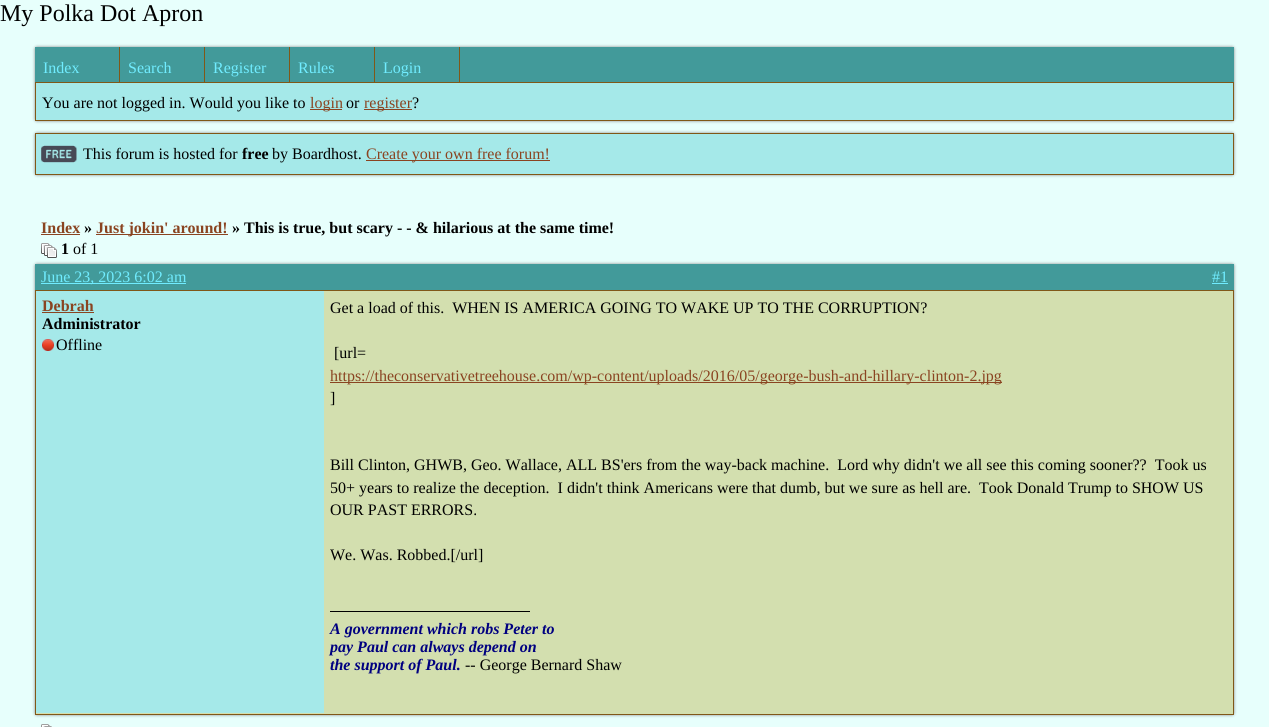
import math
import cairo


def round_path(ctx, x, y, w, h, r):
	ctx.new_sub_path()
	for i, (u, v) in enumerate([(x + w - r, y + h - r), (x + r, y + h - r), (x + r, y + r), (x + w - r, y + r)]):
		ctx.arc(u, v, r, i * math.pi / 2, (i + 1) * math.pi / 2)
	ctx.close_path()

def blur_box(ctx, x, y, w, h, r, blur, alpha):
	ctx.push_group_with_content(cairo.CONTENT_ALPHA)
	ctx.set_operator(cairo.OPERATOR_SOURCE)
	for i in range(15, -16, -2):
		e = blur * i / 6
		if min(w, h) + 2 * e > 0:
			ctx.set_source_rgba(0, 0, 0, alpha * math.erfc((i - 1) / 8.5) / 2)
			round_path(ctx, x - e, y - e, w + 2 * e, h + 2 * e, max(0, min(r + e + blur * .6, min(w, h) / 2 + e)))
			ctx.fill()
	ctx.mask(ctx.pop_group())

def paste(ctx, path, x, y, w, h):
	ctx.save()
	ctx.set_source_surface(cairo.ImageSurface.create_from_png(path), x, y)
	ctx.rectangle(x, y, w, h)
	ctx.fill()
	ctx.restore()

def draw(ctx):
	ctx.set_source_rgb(0.906, 1, 0.988)
	ctx.paint()
	ctx.select_font_face('Liberation Serif')
	ctx.set_font_size(24)
	ctx.set_source_rgb(0, 0, 0)
	ctx.move_to(0, 21)
	ctx.show_text('My Polka Dot Apron')
	ctx.set_source_rgb(0.533, 0.533, 0.533)
	blur_box(ctx, 35, 47, 1199, 74, 2, 1.5, 1)
	ctx.set_source_rgb(0.647, 0.914, 0.914)
	ctx.rectangle(36, 83, 1197, 37)
	ctx.fill()
	ctx.rectangle(35.5, 47.5, 1198, 73)
	ctx.set_source_rgb(0.502, 0.345, 0.094)
	ctx.set_line_width(1)
	ctx.stroke()
	ctx.set_source_rgb(0.259, 0.604, 0.604)
	ctx.rectangle(35, 47, 1199, 35)
	ctx.fill()
	ctx.set_source_rgb(0.502, 0.345, 0.094)
	ctx.rectangle(35, 82, 1199, 1)
	ctx.rectangle(119, 47, 1, 35)
	ctx.fill()
	ctx.set_font_size(16)
	ctx.set_source_rgb(0.439, 0.922, 1)
	ctx.move_to(43, 73)
	ctx.show_text('Index')
	ctx.set_source_rgb(0.502, 0.345, 0.094)
	ctx.rectangle(204, 47, 1, 35)
	ctx.fill()
	ctx.set_source_rgb(0.439, 0.922, 1)
	ctx.move_to(128, 73)
	ctx.show_text('Search')
	ctx.set_source_rgb(0.502, 0.345, 0.094)
	ctx.rectangle(289, 47, 1, 35)
	ctx.fill()
	ctx.set_source_rgb(0.439, 0.922, 1)
	ctx.move_to(213, 73)
	ctx.show_text('Register')
	ctx.set_source_rgb(0.502, 0.345, 0.094)
	ctx.rectangle(374, 47, 1, 35)
	ctx.fill()
	ctx.set_source_rgb(0.439, 0.922, 1)
	ctx.move_to(298, 73)
	ctx.show_text('Rules')
	ctx.set_source_rgb(0.502, 0.345, 0.094)
	ctx.rectangle(459, 47, 1, 35)
	ctx.fill()
	ctx.set_source_rgb(0.439, 0.922, 1)
	ctx.move_to(383, 73)
	ctx.show_text('Login')
	ctx.set_source_rgb(0, 0, 0)
	ctx.move_to(42, 108)
	ctx.show_text('You are not logged in. Would you like to')
	ctx.set_source_rgb(0.541, 0.267, 0.129)
	ctx.rectangle(310, 109, 32, 1)
	ctx.fill()
	ctx.move_to(310, 108)
	ctx.show_text('login')
	ctx.set_source_rgb(0, 0, 0)
	ctx.move_to(346, 108)
	ctx.show_text('or')
	ctx.set_source_rgb(0.541, 0.267, 0.129)
	ctx.rectangle(364, 109, 48, 1)
	ctx.fill()
	ctx.move_to(364, 108)
	ctx.show_text('register')
	ctx.set_source_rgb(0, 0, 0)
	ctx.move_to(412, 108)
	ctx.show_text('?')
	ctx.set_source_rgb(0.533, 0.533, 0.533)
	blur_box(ctx, 35, 133, 1199, 42, 2, 1.5, 1)
	ctx.set_source_rgb(0.647, 0.914, 0.914)
	ctx.rectangle(35.5, 133.5, 1198, 41)
	ctx.fill_preserve()
	ctx.set_source_rgb(0.502, 0.345, 0.094)
	ctx.stroke()
	paste(ctx, 'media/1.png', 41, 145, 36, 18)
	ctx.set_source_rgb(0, 0, 0)
	ctx.move_to(83, 159)
	ctx.show_text('This forum is hosted for')
	ctx.select_font_face('Liberation Serif', cairo.FONT_SLANT_NORMAL, cairo.FONT_WEIGHT_BOLD)
	ctx.move_to(242, 159)
	ctx.show_text('free')
	ctx.select_font_face('Liberation Serif')
	ctx.move_to(272, 159)
	ctx.show_text('by Boardhost.')
	ctx.set_source_rgb(0.541, 0.267, 0.129)
	ctx.rectangle(366, 160, 184, 1)
	ctx.fill()
	ctx.move_to(366, 159)
	ctx.show_text('Create your own free forum!')
	ctx.select_font_face('Liberation Serif', cairo.FONT_SLANT_NORMAL, cairo.FONT_WEIGHT_BOLD)
	ctx.move_to(41, 233)
	ctx.show_text('Index')
	ctx.rectangle(41, 234, 39, 1)
	ctx.fill()
	ctx.set_source_rgb(0, 0, 0)
	ctx.move_to(84, 233)
	ctx.show_text('»')
	ctx.set_source_rgb(0.541, 0.267, 0.129)
	ctx.rectangle(96, 234, 132, 1)
	ctx.fill()
	ctx.move_to(96, 233)
	ctx.show_text('Just jokin\' around!')
	ctx.set_source_rgb(0, 0, 0)
	ctx.move_to(232, 233)
	ctx.show_text('» This is true, but scary - - & hilarious at the same time!')
	paste(ctx, 'media/2.png', 41, 243, 16, 15)
	ctx.move_to(61, 254)
	ctx.show_text('1')
	ctx.select_font_face('Liberation Serif')
	ctx.move_to(73, 254)
	ctx.show_text('of 1')
	ctx.set_source_rgb(0.533, 0.533, 0.533)
	blur_box(ctx, 35, 264, 1199, 451, 2, 1.5, 1)
	ctx.set_source_rgb(0.259, 0.604, 0.604)
	ctx.rectangle(35, 264, 1199, 26)
	ctx.fill()
	ctx.set_source_rgb(0.439, 0.922, 1)
	ctx.rectangle(41, 283, 145, 1)
	ctx.fill()
	ctx.move_to(41, 282)
	ctx.show_text('June 23, 2023 6:02 am')
	ctx.move_to(1212, 282)
	ctx.show_text('#1')
	ctx.rectangle(1212, 283, 16, 1)
	ctx.fill()
	ctx.set_source_rgb(0.827, 0.875, 0.686)
	ctx.rectangle(35.5, 290.5, 1198, 424)
	ctx.fill_preserve()
	ctx.set_source_rgb(0.502, 0.345, 0.094)
	ctx.stroke()
	ctx.set_source_rgb(0.647, 0.914, 0.914)
	ctx.rectangle(36, 291, 288, 422)
	ctx.fill()
	ctx.select_font_face('Liberation Serif', cairo.FONT_SLANT_NORMAL, cairo.FONT_WEIGHT_BOLD)
	ctx.set_source_rgb(0.541, 0.267, 0.129)
	ctx.move_to(42, 311)
	ctx.show_text('Debrah')
	ctx.rectangle(42, 312, 52, 1)
	ctx.fill()
	ctx.set_source_rgb(0, 0, 0)
	ctx.move_to(42, 329)
	ctx.show_text('Administrator')
	paste(ctx, 'media/3.png', 42, 339, 12, 12)
	ctx.select_font_face('Liberation Serif')
	for x, y, s in [
		(56, 350, 'Offline'),
		(330, 313, 'Get a load of this.  WHEN IS AMERICA GOING TO WAKE UP TO THE CORRUPTION?'),
		(334, 358, '[url='),
	]:
		ctx.move_to(x, y)
		ctx.show_text(s)
	ctx.set_source_rgb(0.541, 0.267, 0.129)
	ctx.rectangle(330, 382, 672, 1)
	ctx.fill()
	ctx.move_to(330, 381)
	ctx.show_text('https://theconservativetreehouse.com/wp-content/uploads/2016/05/george-bush-and-hillary-clinton-2.jpg')
	ctx.set_source_rgb(0, 0, 0)
	for x, y, s in [
		(330, 403, ']'),
		(330, 470, 'Bill Clinton, GHWB, Geo. Wallace, ALL BS\'ers from the way-back machine.  Lord why didn\'t we all see this coming sooner??  Took us'),
		(330, 493, '50+ years to realize the deception.  I didn\'t think Americans were that dumb, but we sure as hell are.  Took Donald Trump to SHOW US'),
		(330, 515, 'OUR PAST ERRORS.'),
		(330, 560, 'We. Was. Robbed.[/url]'),
	]:
		ctx.move_to(x, y)
		ctx.show_text(s)
	ctx.rectangle(330, 611, 200, 1)
	ctx.fill()
	ctx.select_font_face('Liberation Serif', cairo.FONT_SLANT_ITALIC, cairo.FONT_WEIGHT_BOLD)
	ctx.set_source_rgb(0, 0, 0.502)
	for x, y, s in [
		(330, 634, 'A government which robs Peter to'),
		(330, 652, 'pay Paul can always depend on'),
		(330, 670, 'the support of Paul.'),
	]:
		ctx.move_to(x, y)
		ctx.show_text(s)
	ctx.select_font_face('Liberation Serif')
	ctx.set_source_rgb(0, 0, 0)
	ctx.move_to(465, 670)
	ctx.show_text('-- George Bernard Shaw')
	paste(ctx, 'media/4.png', 41, 724, 11, 3)


surface = cairo.ImageSurface(cairo.FORMAT_RGB24, 1269, 727)
ctx = cairo.Context(surface)
options = cairo.FontOptions()
options.set_hint_metrics(cairo.HINT_METRICS_OFF)
options.set_hint_style(cairo.HINT_STYLE_NONE)
ctx.set_font_options(options)
ctx.set_miter_limit(4)
draw(ctx)
surface.write_to_png('image.png')
